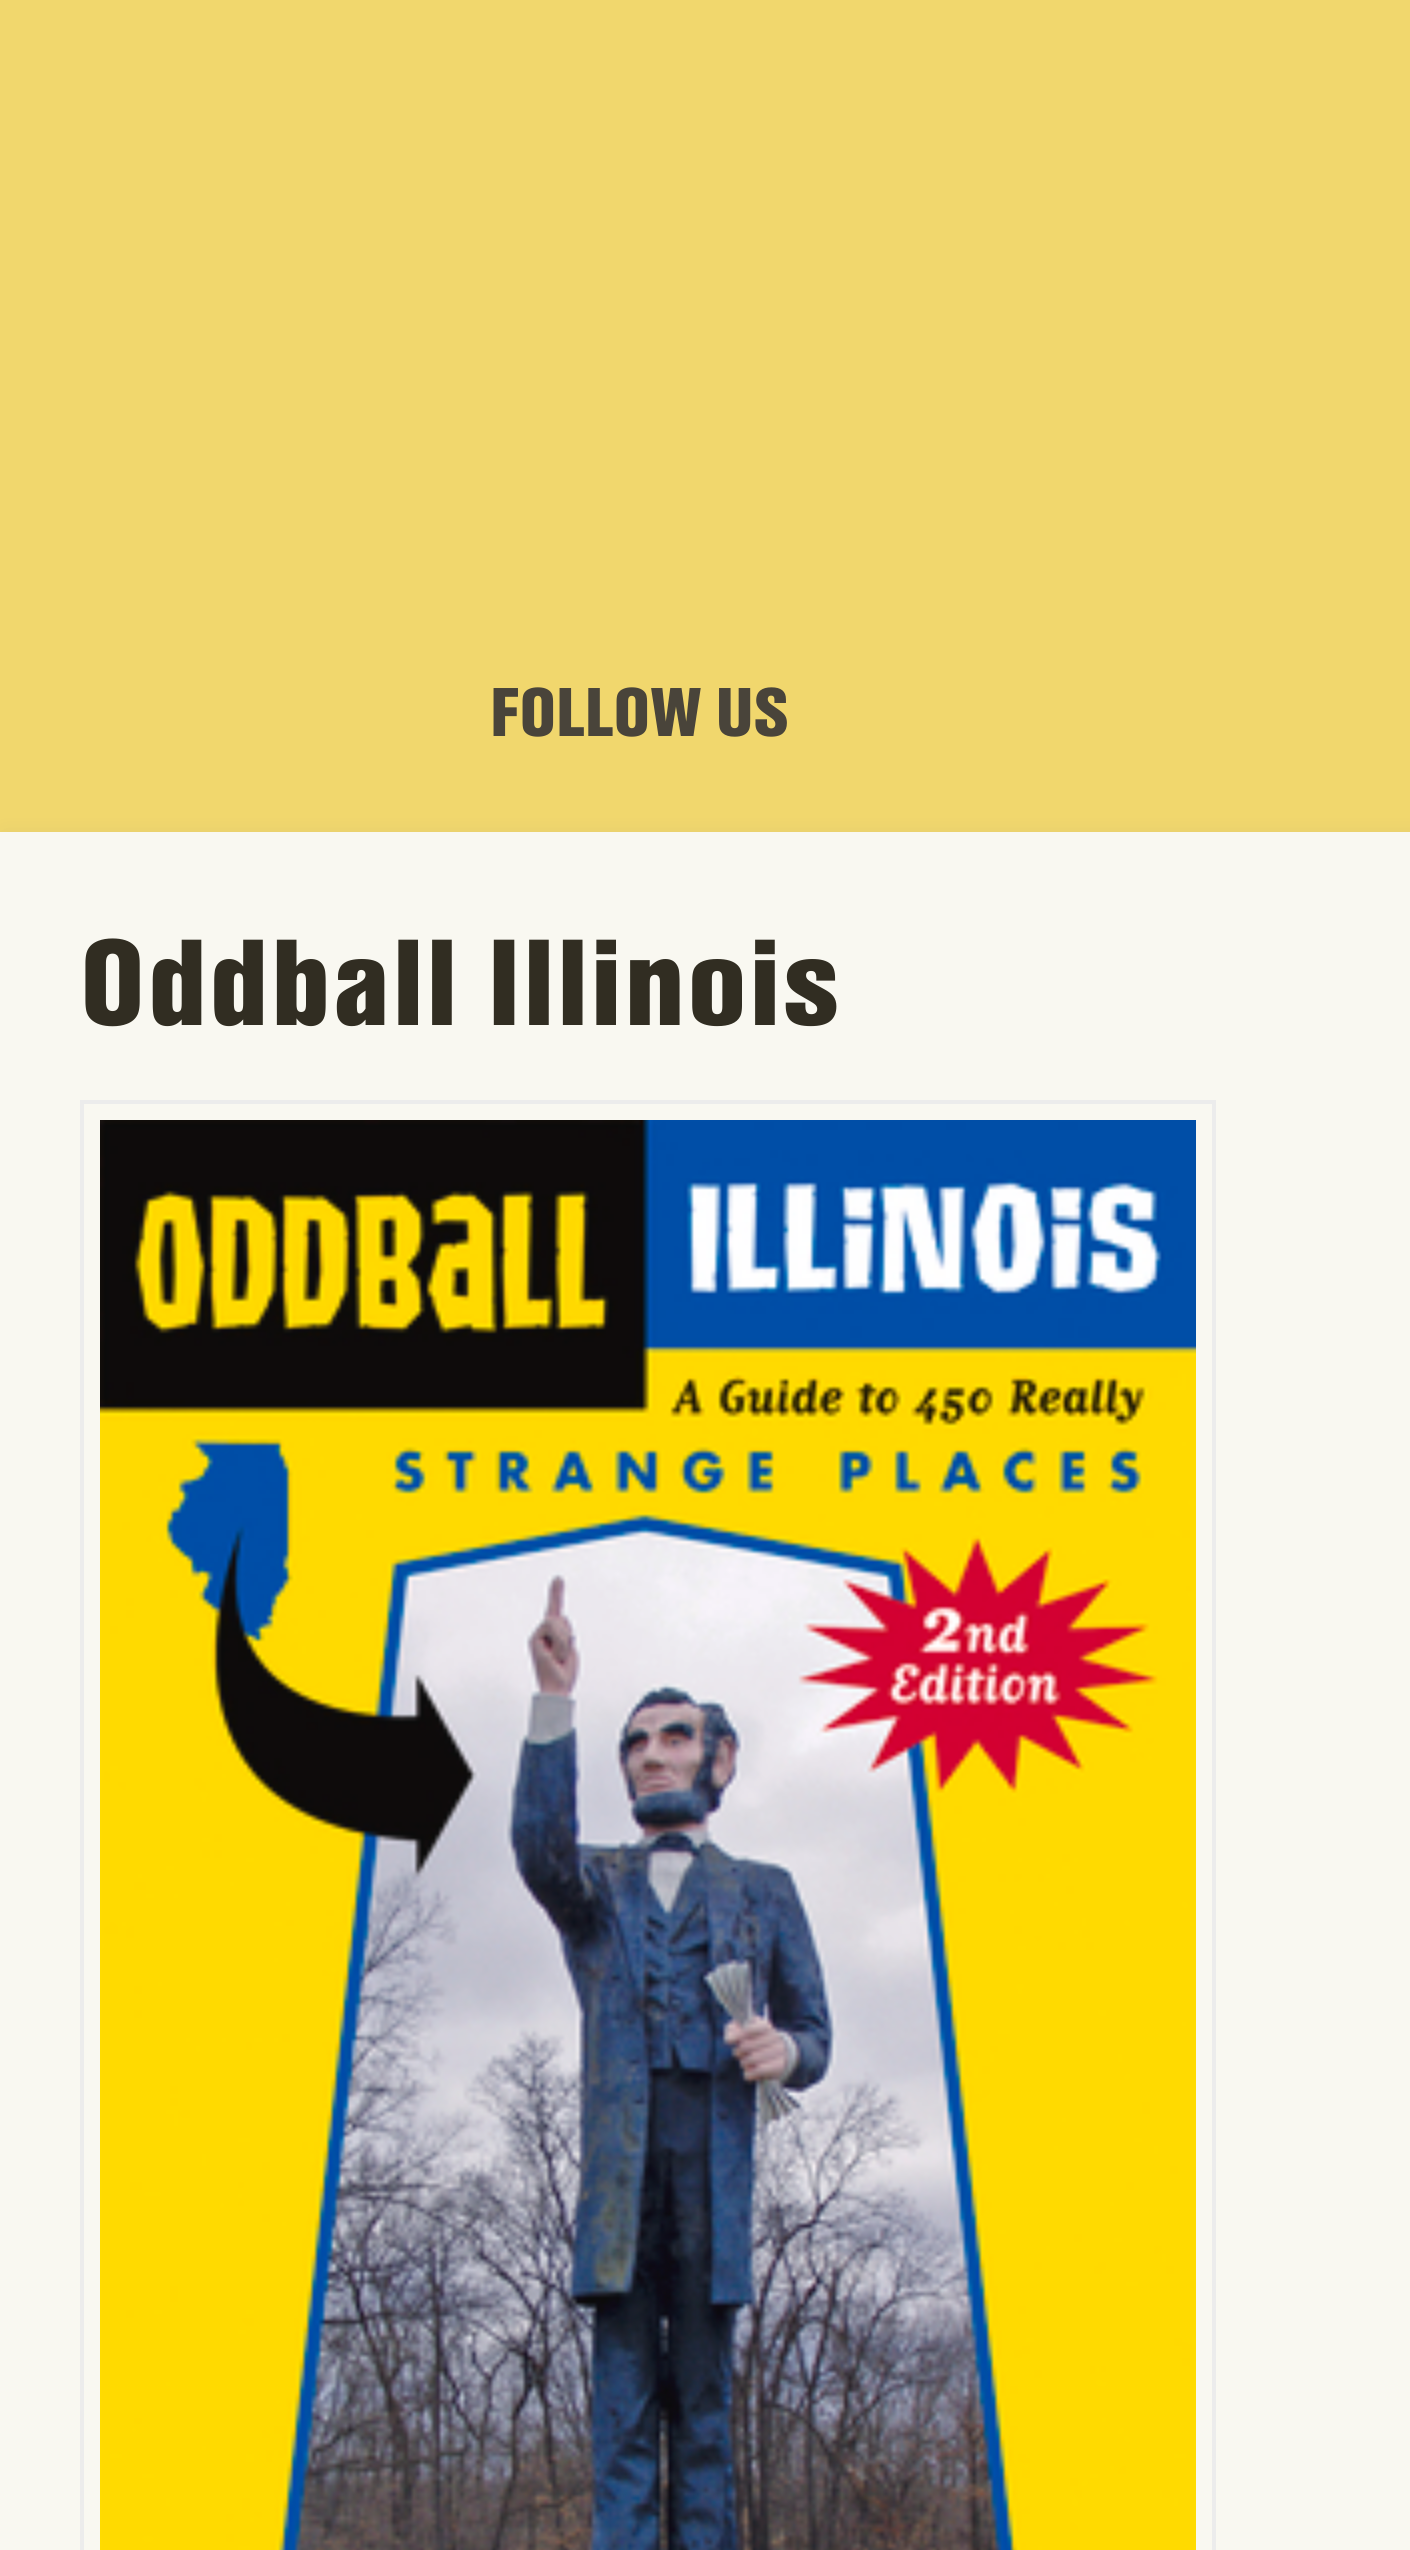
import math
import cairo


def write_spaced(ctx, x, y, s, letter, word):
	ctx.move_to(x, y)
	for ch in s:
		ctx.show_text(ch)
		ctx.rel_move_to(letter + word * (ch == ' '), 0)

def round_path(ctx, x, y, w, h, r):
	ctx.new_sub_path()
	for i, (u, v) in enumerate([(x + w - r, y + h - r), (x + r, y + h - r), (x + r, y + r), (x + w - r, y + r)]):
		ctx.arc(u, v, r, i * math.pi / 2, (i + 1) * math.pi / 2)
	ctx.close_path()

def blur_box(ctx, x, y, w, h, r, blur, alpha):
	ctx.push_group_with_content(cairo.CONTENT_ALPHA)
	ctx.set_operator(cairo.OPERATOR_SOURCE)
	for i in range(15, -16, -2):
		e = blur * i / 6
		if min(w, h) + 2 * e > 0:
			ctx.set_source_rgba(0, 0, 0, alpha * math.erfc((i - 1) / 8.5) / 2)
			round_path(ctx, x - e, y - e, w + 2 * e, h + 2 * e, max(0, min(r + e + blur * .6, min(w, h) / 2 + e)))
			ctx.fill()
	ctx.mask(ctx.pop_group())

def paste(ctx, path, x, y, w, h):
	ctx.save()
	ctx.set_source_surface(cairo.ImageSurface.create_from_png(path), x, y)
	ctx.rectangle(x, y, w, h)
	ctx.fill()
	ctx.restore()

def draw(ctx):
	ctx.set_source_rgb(0.945, 0.843, 0.427)
	ctx.paint()
	ctx.select_font_face('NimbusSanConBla')
	ctx.set_font_size(72)
	ctx.set_source_rgb(0.286, 0.267, 0.227)
	ctx.move_to(490, 736)
	ctx.show_text('FOLLOW US')
	ctx.set_source_rgb(0.478, 0.478, 0.478)
	blur_box(ctx, 4, 836, 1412, 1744, 0, 10, 0.15)
	ctx.set_source_rgb(0.976, 0.969, 0.945)
	ctx.rectangle(0, 832, 1410, 1718)
	ctx.fill()
	ctx.set_font_size(128)
	ctx.set_source_rgb(0.192, 0.176, 0.133)
	write_spaced(ctx, 80, 1025, 'Oddball Illinois', 3.25, 0)
	ctx.rectangle(82, 1102, 1132, 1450)
	ctx.set_source_rgb(0.925, 0.925, 0.925)
	ctx.set_line_width(4)
	ctx.stroke()
	paste(ctx, 'media/1.png', 100, 1120, 1096, 1430)


surface = cairo.ImageSurface(cairo.FORMAT_RGB24, 1410, 2550)
ctx = cairo.Context(surface)
options = cairo.FontOptions()
options.set_hint_metrics(cairo.HINT_METRICS_OFF)
options.set_hint_style(cairo.HINT_STYLE_NONE)
ctx.set_font_options(options)
ctx.set_miter_limit(4)
draw(ctx)
surface.write_to_png('image.png')
